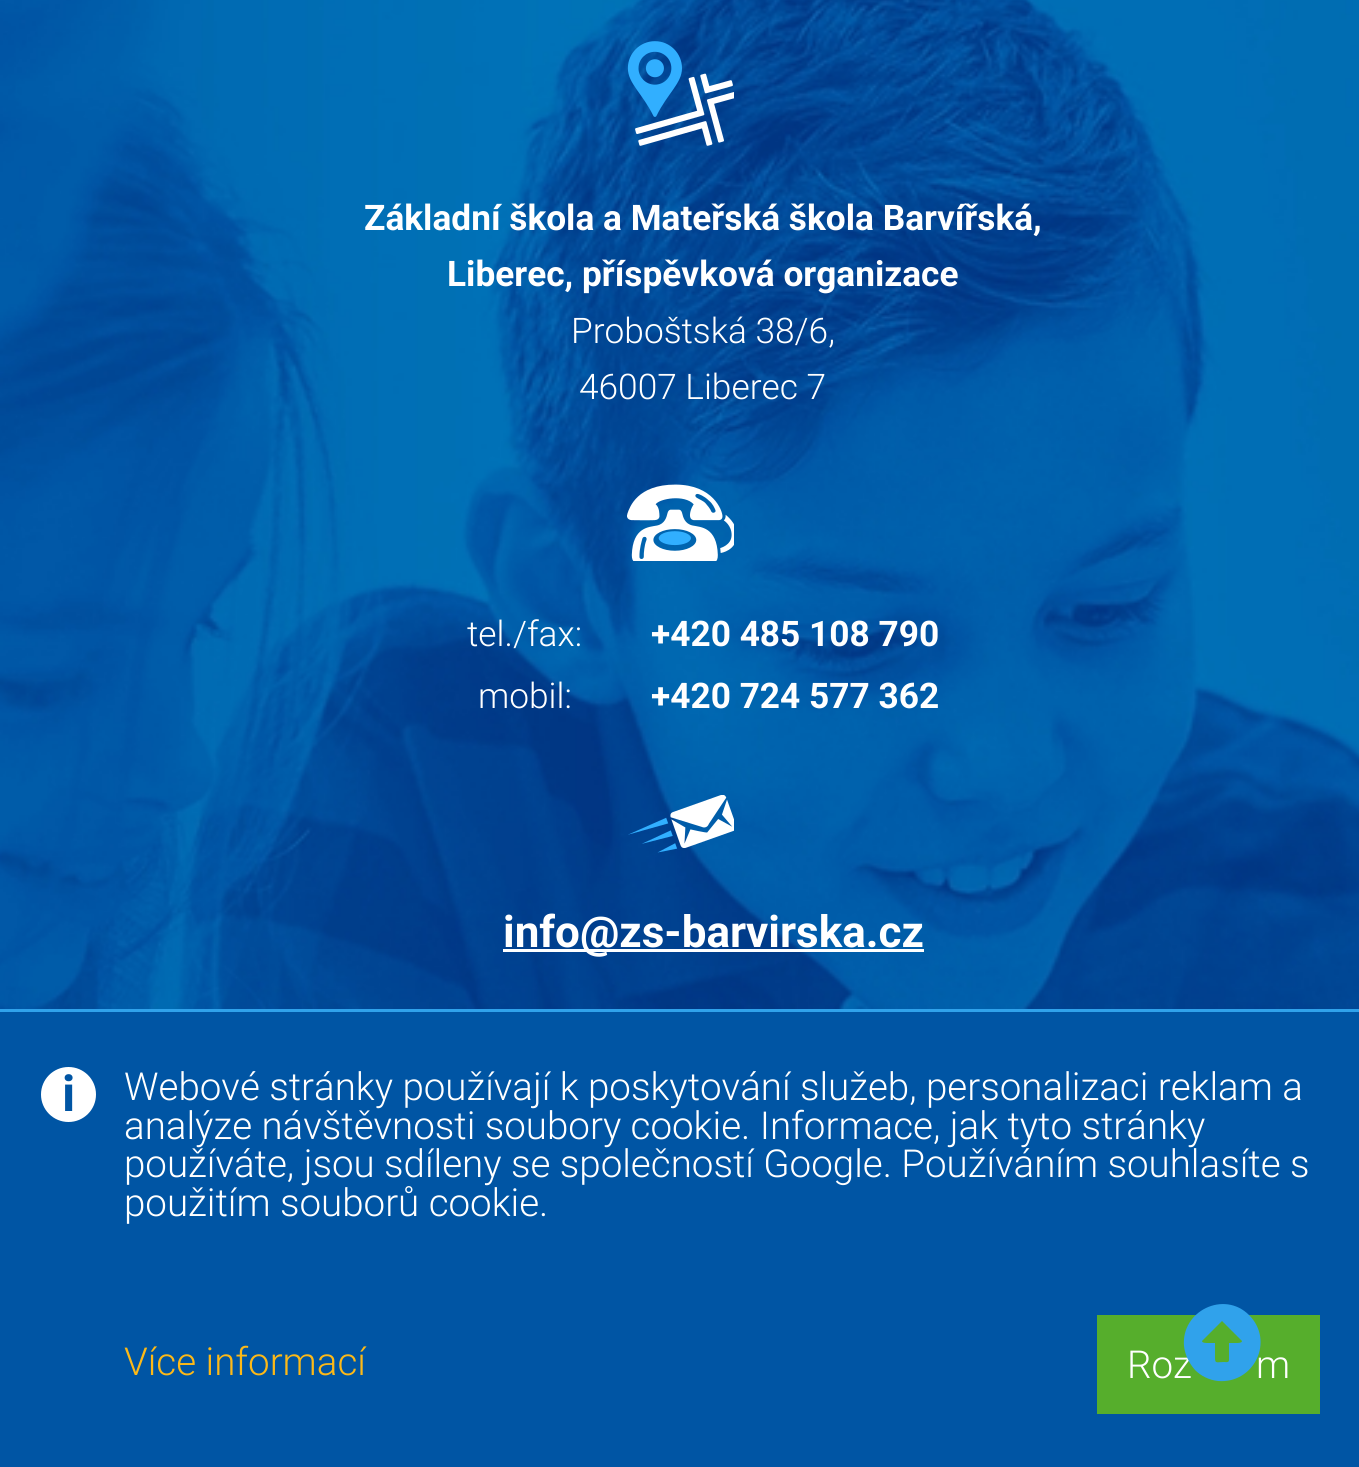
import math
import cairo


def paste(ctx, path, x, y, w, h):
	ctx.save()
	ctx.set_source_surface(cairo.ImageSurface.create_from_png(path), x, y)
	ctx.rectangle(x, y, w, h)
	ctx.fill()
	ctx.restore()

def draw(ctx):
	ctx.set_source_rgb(1, 1, 1)
	ctx.paint()
	paste(ctx, 'media/1.png', 0, 0, 1359, 1009)
	paste(ctx, 'media/2.png', 627, 41, 107, 105)
	ctx.select_font_face('Roboto', cairo.FONT_SLANT_NORMAL, cairo.FONT_WEIGHT_BOLD)
	ctx.set_font_size(35.25)
	ctx.set_source_rgb(1, 1, 1)
	ctx.move_to(364, 230)
	ctx.show_text('Základní škola a Mateřská škola Barvířská,')
	ctx.move_to(447, 286)
	ctx.show_text('Liberec, příspěvková organizace')
	ctx.select_font_face('Roboto Light')
	ctx.move_to(571, 343)
	ctx.show_text('Proboštská 38/6,')
	ctx.move_to(579, 399)
	ctx.show_text('46007 Liberec 7')
	paste(ctx, 'media/3.png', 627, 484, 107, 77)
	ctx.move_to(467, 646)
	ctx.show_text('tel./fax:')
	ctx.select_font_face('Roboto', cairo.FONT_SLANT_NORMAL, cairo.FONT_WEIGHT_BOLD)
	ctx.move_to(651, 646)
	ctx.show_text('+420 485 108 790')
	ctx.select_font_face('Roboto Light')
	ctx.move_to(478, 708)
	ctx.show_text('mobil:')
	ctx.select_font_face('Roboto', cairo.FONT_SLANT_NORMAL, cairo.FONT_WEIGHT_BOLD)
	ctx.move_to(651, 708)
	ctx.show_text('+420 724 577 362')
	paste(ctx, 'media/4.png', 628, 795, 106, 58)
	ctx.rectangle(503, 949, 421, 3)
	ctx.fill()
	ctx.set_font_size(44)
	ctx.move_to(503, 947)
	ctx.show_text('info@zs-barvirska.cz')
	ctx.set_source_rgb(0.188, 0.635, 0.918)
	ctx.rectangle(0, 1009, 1359, 3)
	ctx.fill()
	ctx.set_source_rgb(0, 0.333, 0.643)
	ctx.rectangle(0, 1012, 1359, 455)
	ctx.fill()
	ctx.set_source_rgb(0.337, 0.682, 0.173)
	ctx.rectangle(1097, 1315, 223, 99)
	ctx.fill()
	ctx.select_font_face('Roboto Light')
	ctx.set_font_size(38.5)
	ctx.set_source_rgb(1, 1, 1)
	ctx.move_to(1127, 1378)
	ctx.show_text('Roz')
	ctx.move_to(1256, 1378)
	ctx.show_text('m')
	ctx.set_source_rgb(0.188, 0.635, 0.918)
	ctx.new_path()
	ctx.move_to(1195, 1370)
	ctx.curve_to(1189, 1363, 1185, 1355, 1184, 1346)
	ctx.curve_to(1181, 1311, 1224, 1290, 1249, 1315)
	ctx.curve_to(1275, 1341, 1254, 1384, 1218, 1381)
	ctx.curve_to(1209, 1380, 1201, 1376, 1195, 1370)
	ctx.close_path()
	ctx.move_to(1229, 1360)
	ctx.line_to(1229, 1343)
	ctx.line_to(1236, 1343)
	ctx.curve_to(1238, 1343, 1242, 1343, 1242, 1341)
	ctx.line_to(1226, 1325)
	ctx.line_to(1222, 1321)
	ctx.line_to(1218, 1325)
	ctx.line_to(1202, 1341)
	ctx.curve_to(1202, 1343, 1206, 1343, 1208, 1343)
	ctx.line_to(1215, 1343)
	ctx.line_to(1215, 1358)
	ctx.curve_to(1215, 1364, 1217, 1362, 1224, 1362)
	ctx.curve_to(1225, 1362, 1229, 1363, 1229, 1360)
	ctx.close_path()
	ctx.fill()
	ctx.set_source_rgb(1, 1, 1)
	ctx.arc(68.5, 1094.5, 27.5, 0, 2 * math.pi)
	ctx.fill()
	ctx.select_font_face('Roboto', cairo.FONT_SLANT_NORMAL, cairo.FONT_WEIGHT_BOLD)
	ctx.set_font_size(50)
	ctx.set_source_rgb(0, 0.333, 0.643)
	ctx.move_to(62, 1111)
	ctx.show_text('i')
	ctx.select_font_face('Roboto Light')
	ctx.set_font_size(38.5)
	ctx.set_source_rgb(1, 1, 1)
	for x, y, s in [
		(124, 1100, 'Webové stránky používají k poskytování služeb, personalizaci reklam a'),
		(124, 1139, 'analýze návštěvnosti soubory cookie. Informace, jak tyto stránky'),
		(124, 1177, 'používáte, jsou sdíleny se společností Google. Používáním souhlasíte s'),
		(124, 1216, 'použitím souborů cookie.'),
	]:
		ctx.move_to(x, y)
		ctx.show_text(s)
	ctx.set_source_rgb(0.992, 0.725, 0.09)
	ctx.move_to(124, 1375)
	ctx.show_text('Více informací')


surface = cairo.ImageSurface(cairo.FORMAT_RGB24, 1359, 1467)
ctx = cairo.Context(surface)
options = cairo.FontOptions()
options.set_hint_metrics(cairo.HINT_METRICS_OFF)
options.set_hint_style(cairo.HINT_STYLE_NONE)
ctx.set_font_options(options)
ctx.set_miter_limit(4)
draw(ctx)
surface.write_to_png('image.png')
